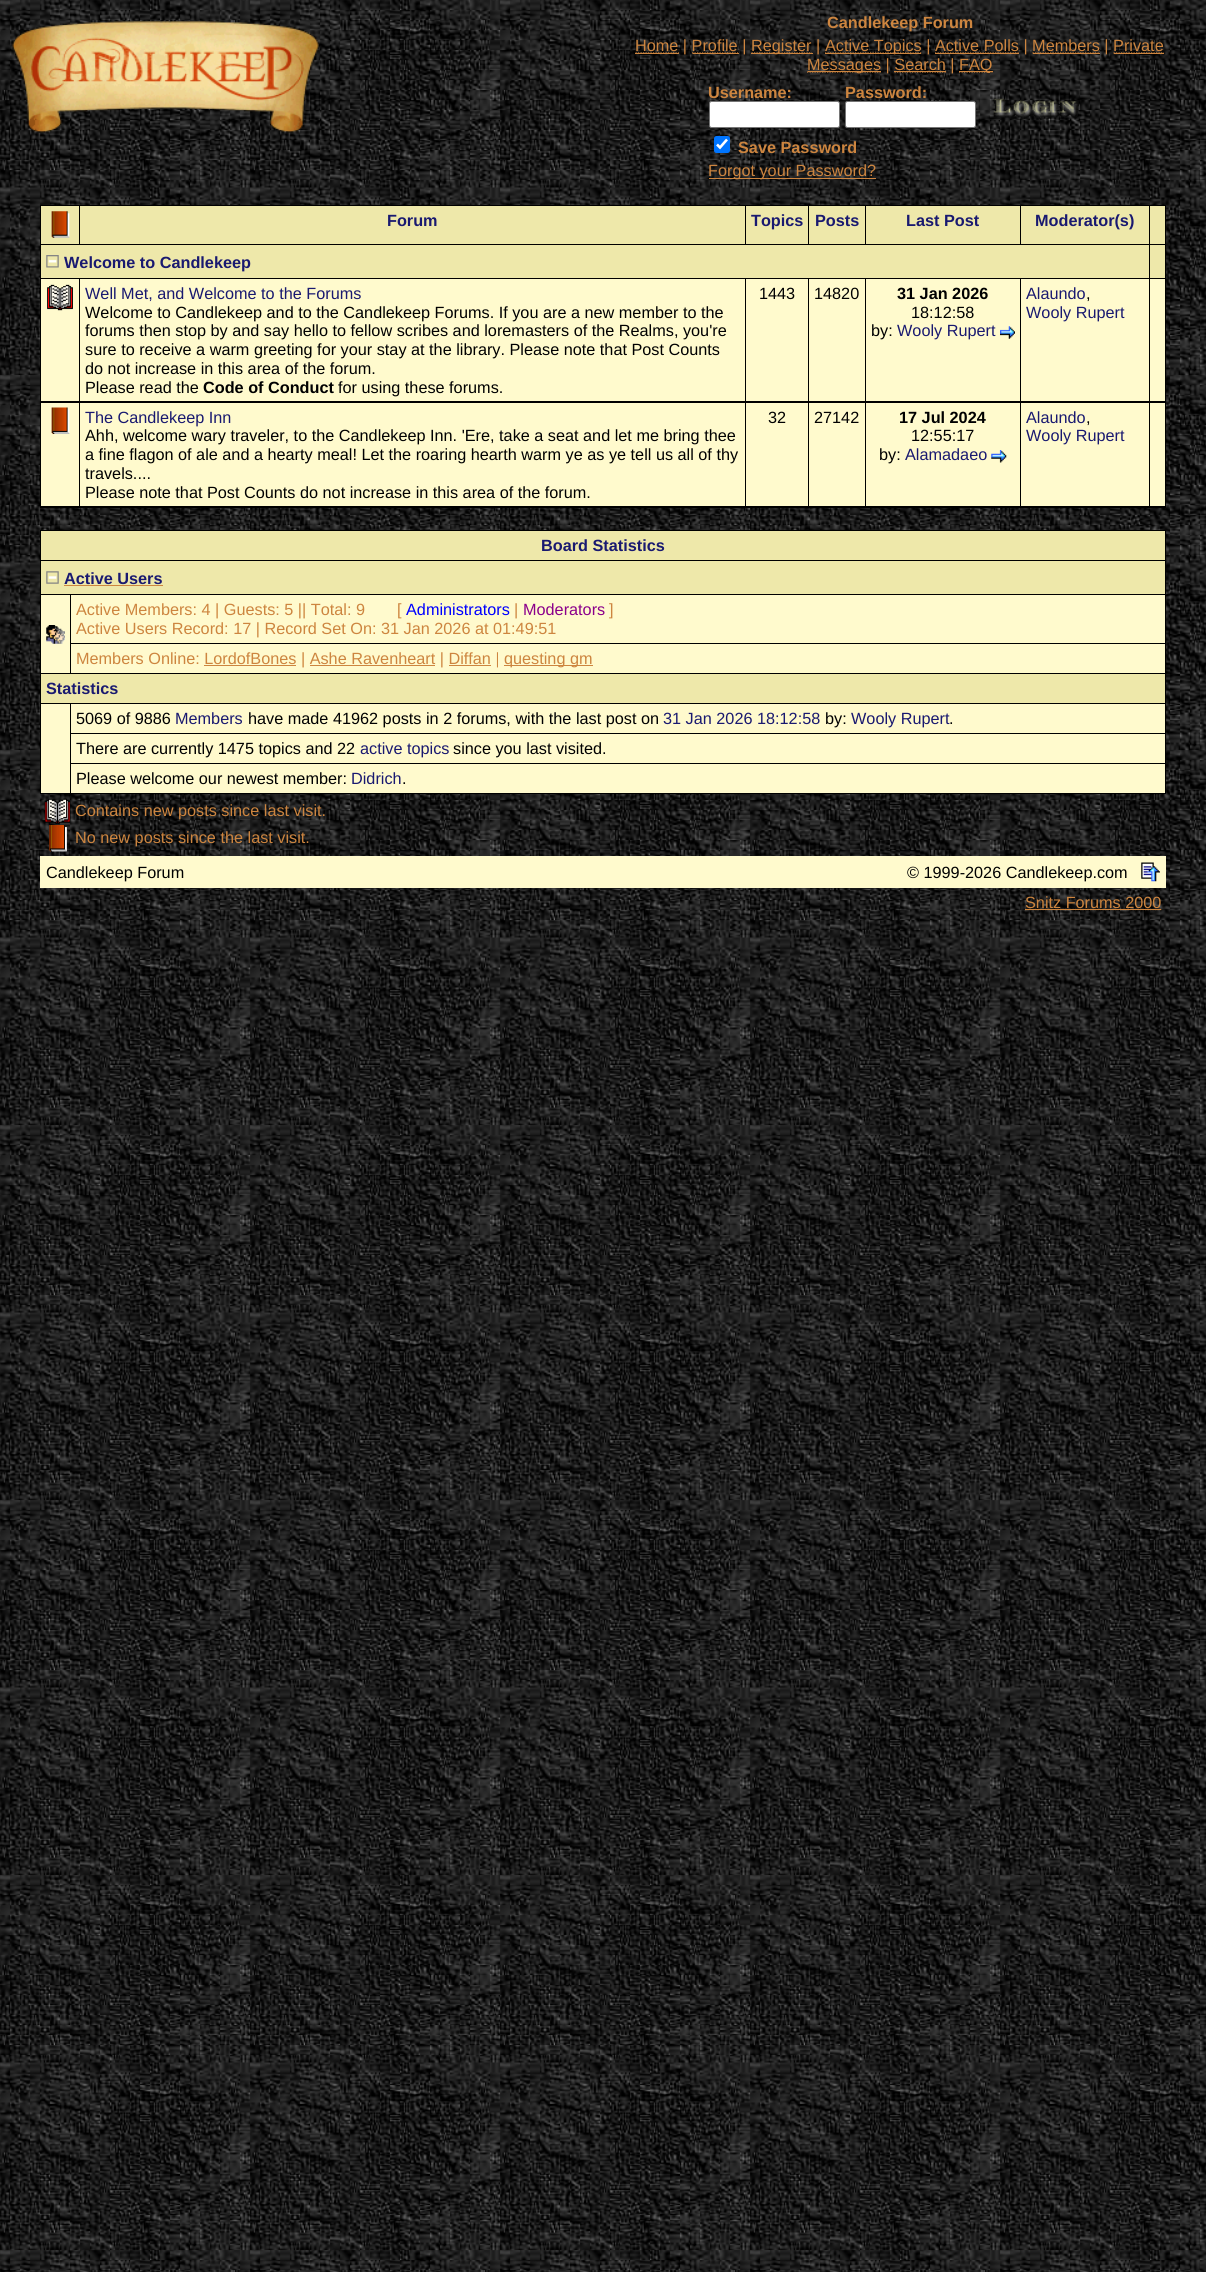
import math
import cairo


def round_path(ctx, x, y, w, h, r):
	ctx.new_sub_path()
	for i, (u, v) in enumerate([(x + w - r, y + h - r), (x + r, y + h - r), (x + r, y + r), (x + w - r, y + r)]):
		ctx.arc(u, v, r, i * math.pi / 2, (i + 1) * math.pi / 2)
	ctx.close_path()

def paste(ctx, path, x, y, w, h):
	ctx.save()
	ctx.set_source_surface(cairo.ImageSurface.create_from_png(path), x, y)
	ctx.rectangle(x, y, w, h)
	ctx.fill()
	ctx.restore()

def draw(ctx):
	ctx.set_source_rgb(1, 1, 1)
	ctx.paint()
	paste(ctx, 'media/1.png', 0, 0, 1206, 2272)
	paste(ctx, 'media/2.png', 12, 21, 307, 112)
	ctx.select_font_face('Liberation Sans', cairo.FONT_SLANT_NORMAL, cairo.FONT_WEIGHT_BOLD)
	ctx.set_font_size(16.25)
	ctx.set_source_rgb(0.804, 0.522, 0.247)
	ctx.move_to(827, 28)
	ctx.show_text('Candlekeep Forum')
	ctx.new_path()
	ctx.move_to(635.5, 53)
	ctx.line_to(679, 53)
	ctx.set_line_width(1.2)
	ctx.set_dash([1.25, 1.25])
	ctx.stroke()
	ctx.rectangle(635, 53, 44, 1)
	ctx.fill()
	ctx.select_font_face('Liberation Sans')
	ctx.move_to(635, 51)
	ctx.show_text('Home | Profile |')
	ctx.new_path()
	ctx.move_to(692, 53)
	ctx.line_to(738, 53)
	ctx.stroke()
	ctx.rectangle(693, 53, 46, 1)
	ctx.fill()
	ctx.new_path()
	ctx.move_to(751.5, 53)
	ctx.line_to(812, 53)
	ctx.stroke()
	ctx.rectangle(751, 53, 62, 1)
	ctx.fill()
	ctx.move_to(751, 51)
	ctx.show_text('Register |')
	ctx.new_path()
	ctx.move_to(825, 53)
	ctx.line_to(922, 53)
	ctx.stroke()
	ctx.rectangle(825, 53, 96, 1)
	ctx.fill()
	ctx.move_to(825, 51)
	ctx.show_text('Active Topics | Active Polls | Members | Private')
	ctx.new_path()
	ctx.move_to(935, 53)
	ctx.line_to(1019, 53)
	ctx.stroke()
	ctx.rectangle(935, 53, 84, 1)
	ctx.fill()
	ctx.new_path()
	ctx.move_to(1032.5, 53)
	ctx.line_to(1100, 53)
	ctx.stroke()
	ctx.rectangle(1033, 53, 67, 1)
	ctx.fill()
	ctx.new_path()
	ctx.move_to(1113.5, 53)
	ctx.line_to(1164, 53)
	ctx.stroke()
	ctx.rectangle(1114, 53, 50, 1)
	ctx.fill()
	ctx.new_path()
	ctx.move_to(807, 72)
	ctx.line_to(881, 72)
	ctx.stroke()
	ctx.rectangle(808, 71, 73, 1)
	ctx.fill()
	ctx.move_to(807, 70)
	ctx.show_text('Messages | Search |')
	ctx.new_path()
	ctx.move_to(894.5, 72)
	ctx.line_to(946, 72)
	ctx.stroke()
	ctx.rectangle(894, 71, 52, 1)
	ctx.fill()
	ctx.new_path()
	ctx.move_to(959, 72)
	ctx.line_to(992.5, 72)
	ctx.stroke()
	ctx.rectangle(959, 71, 34, 1)
	ctx.fill()
	ctx.move_to(959, 70)
	ctx.show_text('FAQ')
	ctx.select_font_face('Liberation Sans', cairo.FONT_SLANT_NORMAL, cairo.FONT_WEIGHT_BOLD)
	ctx.move_to(708, 98)
	ctx.show_text('Username:')
	ctx.set_source_rgb(1, 1, 1)
	round_path(ctx, 709.5, 101.5, 130, 26, 2)
	ctx.fill_preserve()
	ctx.set_source_rgb(0.463, 0.463, 0.463)
	ctx.set_line_width(1)
	ctx.set_dash([])
	ctx.stroke()
	ctx.set_source_rgb(0.804, 0.522, 0.247)
	ctx.move_to(845, 98)
	ctx.show_text('Password:')
	ctx.set_source_rgb(1, 1, 1)
	round_path(ctx, 845.5, 101.5, 130, 26, 2)
	ctx.fill_preserve()
	ctx.set_source_rgb(0.463, 0.463, 0.463)
	ctx.stroke()
	paste(ctx, 'media/3.png', 993, 98, 86, 21)
	ctx.set_source_rgb(0, 0.459, 1)
	round_path(ctx, 714, 136, 16, 17, 2.5)
	ctx.fill()
	ctx.new_path()
	ctx.move_to(717, 144.5)
	ctx.line_to(720, 147.5)
	ctx.line_to(727, 139.5)
	ctx.set_source_rgb(1, 1, 1)
	ctx.set_line_width(2.6)
	ctx.stroke()
	ctx.set_source_rgb(0.804, 0.522, 0.247)
	ctx.move_to(738, 153)
	ctx.show_text('Save Password')
	ctx.rectangle(709, 178, 167, 1)
	ctx.fill()
	ctx.select_font_face('Liberation Sans')
	ctx.move_to(708, 176)
	ctx.show_text('Forgot your Password?')
	ctx.set_source_rgb(0, 0, 0)
	ctx.rectangle(40, 205, 1126, 303)
	ctx.fill()
	ctx.set_source_rgb(0.933, 0.91, 0.667)
	ctx.rectangle(41, 206, 38, 38)
	ctx.fill()
	paste(ctx, 'media/4.png', 51, 211, 19, 27)
	ctx.rectangle(80, 206, 665, 38)
	ctx.fill()
	ctx.select_font_face('Liberation Sans', cairo.FONT_SLANT_NORMAL, cairo.FONT_WEIGHT_BOLD)
	ctx.set_source_rgb(0.098, 0.098, 0.439)
	ctx.move_to(387, 226)
	ctx.show_text('Forum')
	ctx.set_source_rgb(0.933, 0.91, 0.667)
	ctx.rectangle(746, 206, 62, 38)
	ctx.fill()
	ctx.set_source_rgb(0.098, 0.098, 0.439)
	ctx.move_to(751, 226)
	ctx.show_text('Topics')
	ctx.set_source_rgb(0.933, 0.91, 0.667)
	ctx.rectangle(809, 206, 56, 38)
	ctx.fill()
	ctx.set_source_rgb(0.098, 0.098, 0.439)
	ctx.move_to(815, 226)
	ctx.show_text('Posts')
	ctx.set_source_rgb(0.933, 0.91, 0.667)
	ctx.rectangle(866, 206, 154, 38)
	ctx.fill()
	ctx.set_source_rgb(0.098, 0.098, 0.439)
	ctx.move_to(906, 226)
	ctx.show_text('Last Post')
	ctx.set_source_rgb(0.933, 0.91, 0.667)
	ctx.rectangle(1021, 206, 128, 38)
	ctx.fill()
	ctx.set_source_rgb(0.098, 0.098, 0.439)
	ctx.move_to(1035, 226)
	ctx.show_text('Moderator(s)')
	ctx.set_source_rgb(0.933, 0.91, 0.667)
	ctx.rectangle(1150, 206, 15, 38)
	ctx.fill()
	ctx.rectangle(41, 245, 1108, 33)
	ctx.fill()
	paste(ctx, 'media/5.png', 46, 255, 13, 13)
	ctx.set_source_rgb(0.098, 0.098, 0.439)
	ctx.move_to(64, 268)
	ctx.show_text('Welcome to Candlekeep')
	ctx.set_source_rgb(0.933, 0.91, 0.667)
	ctx.rectangle(1150, 245, 15, 33)
	ctx.fill()
	ctx.set_source_rgb(1, 0.98, 0.804)
	ctx.rectangle(41, 279, 38, 122)
	ctx.fill()
	paste(ctx, 'media/6.png', 47, 284, 26, 27)
	ctx.rectangle(80, 279, 665, 122)
	ctx.fill()
	ctx.select_font_face('Liberation Sans')
	ctx.set_source_rgb(0.098, 0.098, 0.439)
	ctx.move_to(85, 299)
	ctx.show_text('Well Met, and Welcome to the Forums')
	ctx.set_source_rgb(0, 0, 0)
	for x, y, s in [
		(85, 318, 'Welcome to Candlekeep and to the Candlekeep Forums. If you are a new member to the'),
		(85, 336, 'forums then stop by and say hello to fellow scribes and loremasters of the Realms, you\'re'),
		(85, 355, 'sure to receive a warm greeting for your stay at the library. Please note that Post Counts'),
		(85, 374, 'do not increase in this area of the forum.'),
		(85, 393, 'Please read the'),
	]:
		ctx.move_to(x, y)
		ctx.show_text(s)
	ctx.select_font_face('Liberation Sans', cairo.FONT_SLANT_NORMAL, cairo.FONT_WEIGHT_BOLD)
	ctx.move_to(203, 393)
	ctx.show_text('Code of Conduct')
	ctx.select_font_face('Liberation Sans')
	ctx.move_to(338, 393)
	ctx.show_text('for using these forums.')
	ctx.set_source_rgb(1, 0.98, 0.804)
	ctx.rectangle(746, 279, 62, 122)
	ctx.fill()
	ctx.set_source_rgb(0, 0, 0)
	ctx.move_to(759, 299)
	ctx.show_text('1443')
	ctx.set_source_rgb(1, 0.98, 0.804)
	ctx.rectangle(809, 279, 56, 122)
	ctx.fill()
	ctx.set_source_rgb(0, 0, 0)
	ctx.move_to(814, 299)
	ctx.show_text('14820')
	ctx.set_source_rgb(1, 0.98, 0.804)
	ctx.rectangle(866, 279, 154, 122)
	ctx.fill()
	ctx.select_font_face('Liberation Sans', cairo.FONT_SLANT_NORMAL, cairo.FONT_WEIGHT_BOLD)
	ctx.set_source_rgb(0, 0, 0)
	ctx.move_to(897, 299)
	ctx.show_text('31 Jan 2026')
	ctx.select_font_face('Liberation Sans')
	ctx.move_to(911, 318)
	ctx.show_text('18:12:58')
	ctx.move_to(871, 336)
	ctx.show_text('by:')
	ctx.set_source_rgb(0.098, 0.098, 0.439)
	ctx.move_to(897, 336)
	ctx.show_text('Wooly Rupert')
	paste(ctx, 'media/7.png', 1000, 326, 15, 13)
	ctx.set_source_rgb(1, 0.98, 0.804)
	ctx.rectangle(1021, 279, 128, 122)
	ctx.fill()
	ctx.set_source_rgb(0.098, 0.098, 0.439)
	ctx.move_to(1026, 299)
	ctx.show_text('Alaundo')
	ctx.set_source_rgb(0, 0, 0)
	ctx.move_to(1086, 299)
	ctx.show_text(',')
	ctx.set_source_rgb(0.098, 0.098, 0.439)
	ctx.move_to(1026, 318)
	ctx.show_text('Wooly Rupert')
	ctx.set_source_rgb(1, 0.98, 0.804)
	ctx.rectangle(1150, 279, 15, 122)
	ctx.fill()
	ctx.rectangle(41, 403, 38, 103)
	ctx.fill()
	paste(ctx, 'media/8.png', 51, 407, 19, 27)
	ctx.rectangle(80, 403, 665, 103)
	ctx.fill()
	ctx.set_source_rgb(0.098, 0.098, 0.439)
	ctx.move_to(85, 423)
	ctx.show_text('The Candlekeep Inn')
	ctx.set_source_rgb(0, 0, 0)
	for x, y, s in [
		(85, 441, 'Ahh, welcome wary traveler, to the Candlekeep Inn. \'Ere, take a seat and let me bring thee'),
		(85, 460, 'a fine flagon of ale and a hearty meal! Let the roaring hearth warm ye as ye tell us all of thy'),
		(85, 479, 'travels....'),
		(85, 498, 'Please note that Post Counts do not increase in this area of the forum.'),
	]:
		ctx.move_to(x, y)
		ctx.show_text(s)
	ctx.set_source_rgb(1, 0.98, 0.804)
	ctx.rectangle(746, 403, 62, 103)
	ctx.fill()
	ctx.set_source_rgb(0, 0, 0)
	ctx.move_to(768, 423)
	ctx.show_text('32')
	ctx.set_source_rgb(1, 0.98, 0.804)
	ctx.rectangle(809, 403, 56, 103)
	ctx.fill()
	ctx.set_source_rgb(0, 0, 0)
	ctx.move_to(814, 423)
	ctx.show_text('27142')
	ctx.set_source_rgb(1, 0.98, 0.804)
	ctx.rectangle(866, 403, 154, 103)
	ctx.fill()
	ctx.select_font_face('Liberation Sans', cairo.FONT_SLANT_NORMAL, cairo.FONT_WEIGHT_BOLD)
	ctx.set_source_rgb(0, 0, 0)
	ctx.move_to(899, 423)
	ctx.show_text('17 Jul 2024')
	ctx.select_font_face('Liberation Sans')
	ctx.move_to(911, 441)
	ctx.show_text('12:55:17')
	ctx.move_to(879, 460)
	ctx.show_text('by:')
	ctx.set_source_rgb(0.098, 0.098, 0.439)
	ctx.move_to(905, 460)
	ctx.show_text('Alamadaeo')
	paste(ctx, 'media/9.png', 991, 450, 16, 13)
	ctx.set_source_rgb(1, 0.98, 0.804)
	ctx.rectangle(1021, 403, 128, 103)
	ctx.fill()
	ctx.set_source_rgb(0.098, 0.098, 0.439)
	ctx.move_to(1026, 423)
	ctx.show_text('Alaundo')
	ctx.set_source_rgb(0, 0, 0)
	ctx.move_to(1086, 423)
	ctx.show_text(',')
	ctx.set_source_rgb(0.098, 0.098, 0.439)
	ctx.move_to(1026, 441)
	ctx.show_text('Wooly Rupert')
	ctx.set_source_rgb(1, 0.98, 0.804)
	ctx.rectangle(1150, 403, 15, 103)
	ctx.fill()
	ctx.set_source_rgb(0, 0, 0)
	ctx.rectangle(40, 530, 1126, 264)
	ctx.fill()
	ctx.set_source_rgb(0.933, 0.91, 0.667)
	ctx.rectangle(41, 531, 1124, 29)
	ctx.fill()
	ctx.select_font_face('Liberation Sans', cairo.FONT_SLANT_NORMAL, cairo.FONT_WEIGHT_BOLD)
	ctx.set_source_rgb(0.098, 0.098, 0.439)
	ctx.move_to(541, 551)
	ctx.show_text('Board Statistics')
	ctx.set_source_rgb(0.933, 0.91, 0.667)
	ctx.rectangle(41, 561, 1124, 33)
	ctx.fill()
	paste(ctx, 'media/10.png', 46, 571, 13, 13)
	ctx.set_source_rgb(0.098, 0.098, 0.439)
	ctx.move_to(64, 584)
	ctx.show_text('Active Users')
	ctx.set_source_rgb(0.804, 0.522, 0.247)
	ctx.rectangle(64, 585, 99, 1)
	ctx.fill()
	ctx.set_source_rgb(1, 0.98, 0.804)
	ctx.rectangle(41, 595, 29, 78)
	ctx.fill()
	paste(ctx, 'media/11.png', 46, 625, 19, 19)
	ctx.rectangle(71, 595, 1094, 48)
	ctx.fill()
	ctx.select_font_face('Liberation Sans')
	ctx.set_source_rgb(0.804, 0.522, 0.247)
	ctx.move_to(76, 615)
	ctx.show_text('Active Members: 4 | Guests: 5 || Total: 9')
	ctx.move_to(397, 615)
	ctx.show_text('[')
	ctx.set_source_rgb(0, 0, 1)
	ctx.move_to(406, 615)
	ctx.show_text('Administrators')
	ctx.set_source_rgb(0.804, 0.522, 0.247)
	ctx.move_to(514, 615)
	ctx.show_text('|')
	ctx.set_source_rgb(0.545, 0, 0.545)
	ctx.move_to(523, 615)
	ctx.show_text('Moderators')
	ctx.set_source_rgb(0.804, 0.522, 0.247)
	ctx.move_to(609, 615)
	ctx.show_text(']')
	ctx.move_to(76, 634)
	ctx.show_text('Active Users Record: 17 | Record Set On: 31 Jan 2026 at 01:49:51')
	ctx.set_source_rgb(1, 0.98, 0.804)
	ctx.rectangle(71, 644, 1094, 29)
	ctx.fill()
	ctx.set_source_rgb(0.804, 0.522, 0.247)
	ctx.move_to(76, 664)
	ctx.show_text('Members Online: LordofBones | Ashe Ravenheart | Diffan |')
	ctx.rectangle(204, 665, 92, 1)
	ctx.rectangle(310, 665, 125, 1)
	ctx.rectangle(449, 665, 42, 1)
	ctx.rectangle(504, 665, 89, 1)
	ctx.fill()
	ctx.move_to(504, 664)
	ctx.show_text('questing gm')
	ctx.set_source_rgb(0.933, 0.91, 0.667)
	ctx.rectangle(41, 674, 1124, 29)
	ctx.fill()
	ctx.select_font_face('Liberation Sans', cairo.FONT_SLANT_NORMAL, cairo.FONT_WEIGHT_BOLD)
	ctx.set_source_rgb(0.098, 0.098, 0.439)
	ctx.move_to(46, 694)
	ctx.show_text('Statistics')
	ctx.set_source_rgb(1, 0.98, 0.804)
	ctx.rectangle(41, 704, 29, 89)
	ctx.fill()
	ctx.rectangle(71, 704, 1094, 29)
	ctx.fill()
	ctx.select_font_face('Liberation Sans')
	ctx.set_source_rgb(0, 0, 0)
	ctx.move_to(76, 724)
	ctx.show_text('5069 of 9886')
	ctx.set_source_rgb(0.098, 0.098, 0.439)
	ctx.move_to(175, 724)
	ctx.show_text('Members')
	ctx.set_source_rgb(0, 0, 0)
	ctx.move_to(248, 724)
	ctx.show_text('have made 41962 posts in 2 forums, with the last post on')
	ctx.set_source_rgb(0.098, 0.098, 0.439)
	ctx.move_to(663, 724)
	ctx.show_text('31 Jan 2026 18:12:58')
	ctx.set_source_rgb(0, 0, 0)
	ctx.move_to(825, 724)
	ctx.show_text('by:')
	ctx.set_source_rgb(0.098, 0.098, 0.439)
	ctx.move_to(851, 724)
	ctx.show_text('Wooly Rupert')
	ctx.set_source_rgb(0, 0, 0)
	ctx.move_to(949, 724)
	ctx.show_text('.')
	ctx.set_source_rgb(1, 0.98, 0.804)
	ctx.rectangle(71, 734, 1094, 29)
	ctx.fill()
	ctx.set_source_rgb(0, 0, 0)
	ctx.move_to(76, 754)
	ctx.show_text('There are currently 1475 topics and 22')
	ctx.set_source_rgb(0.098, 0.098, 0.439)
	ctx.move_to(360, 754)
	ctx.show_text('active topics')
	ctx.set_source_rgb(0, 0, 0)
	ctx.move_to(453, 754)
	ctx.show_text('since you last visited.')
	ctx.set_source_rgb(1, 0.98, 0.804)
	ctx.rectangle(71, 764, 1094, 29)
	ctx.fill()
	ctx.set_source_rgb(0, 0, 0)
	ctx.move_to(76, 784)
	ctx.show_text('Please welcome our newest member:')
	ctx.set_source_rgb(0.098, 0.098, 0.439)
	ctx.move_to(351, 784)
	ctx.show_text('Didrich')
	ctx.set_source_rgb(0, 0, 0)
	ctx.move_to(402, 784)
	ctx.show_text('.')
	paste(ctx, 'media/12.png', 44, 798, 27, 26)
	ctx.set_source_rgb(0.804, 0.522, 0.247)
	ctx.move_to(75, 816)
	ctx.show_text('Contains new posts since last visit.')
	paste(ctx, 'media/13.png', 49, 825, 18, 27)
	ctx.move_to(75, 843)
	ctx.show_text('No new posts since the last visit.')
	ctx.set_source_rgb(1, 0.98, 0.804)
	ctx.rectangle(40, 856, 1126, 32)
	ctx.fill()
	ctx.set_source_rgb(0, 0, 0)
	ctx.move_to(46, 878)
	ctx.show_text('Candlekeep Forum')
	ctx.move_to(907, 878)
	ctx.show_text('© 1999-2026 Candlekeep.com')
	paste(ctx, 'media/14.png', 1141, 862, 19, 20)
	ctx.new_path()
	ctx.move_to(1025, 909.5)
	ctx.line_to(1161.5, 909.5)
	ctx.set_source_rgb(0.804, 0.522, 0.247)
	ctx.set_line_width(1.2)
	ctx.set_dash([1.25, 1.25])
	ctx.stroke()
	ctx.move_to(1025, 908)
	ctx.show_text('Snitz Forums 2000')
	ctx.rectangle(1025, 909, 136, 1)
	ctx.fill()


surface = cairo.ImageSurface(cairo.FORMAT_RGB24, 1206, 2272)
ctx = cairo.Context(surface)
options = cairo.FontOptions()
options.set_hint_metrics(cairo.HINT_METRICS_OFF)
options.set_hint_style(cairo.HINT_STYLE_NONE)
ctx.set_font_options(options)
ctx.set_miter_limit(4)
draw(ctx)
surface.write_to_png('image.png')
